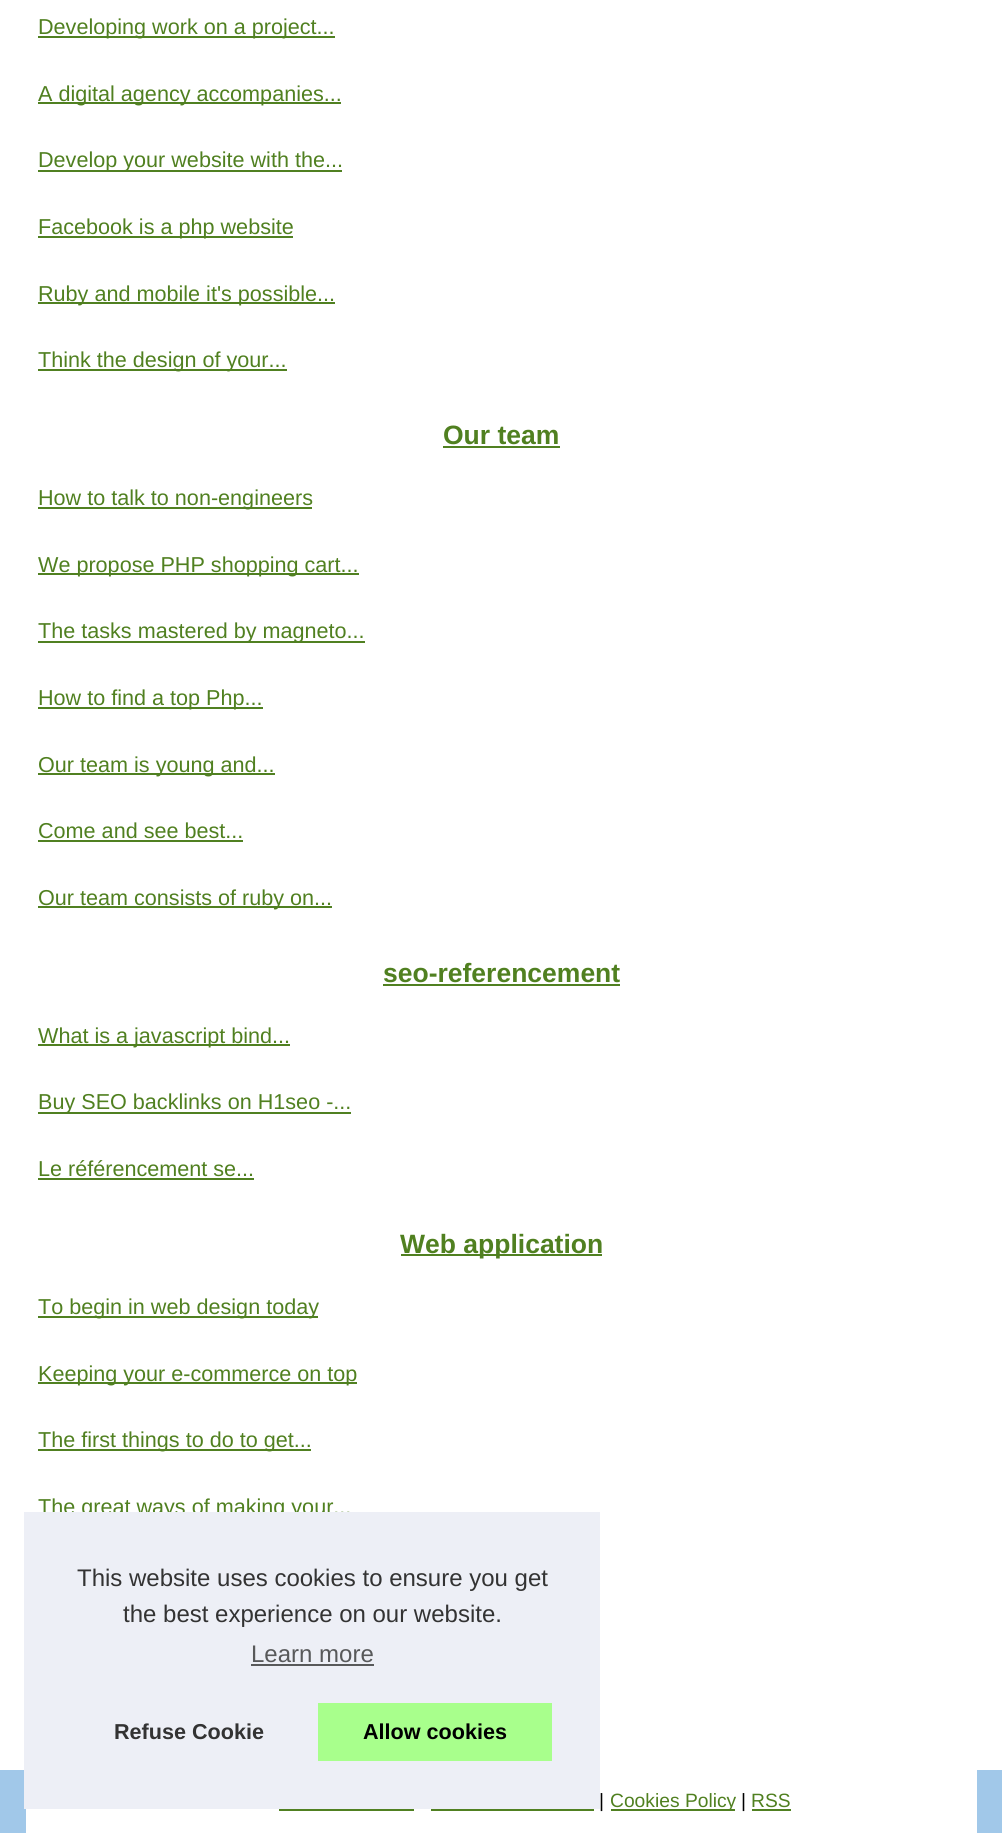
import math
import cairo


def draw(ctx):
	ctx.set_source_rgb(0.631, 0.784, 0.914)
	ctx.paint()
	ctx.set_source_rgb(1, 1, 1)
	ctx.rectangle(0, 0, 1002, 1770)
	ctx.fill()
	ctx.set_source_rgb(0.314, 0.502, 0.129)
	ctx.rectangle(38, 36, 297, 2)
	ctx.fill()
	ctx.select_font_face('Liberation Sans')
	ctx.set_font_size(21.6)
	ctx.set_source_rgb(0.314, 0.502, 0.125)
	ctx.move_to(38, 34)
	ctx.show_text('Developing work on a project...')
	ctx.set_source_rgb(0.314, 0.502, 0.129)
	ctx.rectangle(38, 102, 303, 2)
	ctx.fill()
	ctx.set_source_rgb(0.314, 0.502, 0.125)
	ctx.move_to(38, 101)
	ctx.show_text('A digital agency accompanies...')
	ctx.set_source_rgb(0.314, 0.502, 0.129)
	ctx.rectangle(38, 170, 304, 2)
	ctx.fill()
	ctx.set_source_rgb(0.314, 0.502, 0.125)
	ctx.move_to(38, 167)
	ctx.show_text('Develop your website with the...')
	ctx.set_source_rgb(0.314, 0.502, 0.129)
	ctx.rectangle(38, 236, 255, 2)
	ctx.fill()
	ctx.set_source_rgb(0.314, 0.502, 0.125)
	ctx.move_to(38, 234)
	ctx.show_text('Facebook is a php website')
	ctx.set_source_rgb(0.314, 0.502, 0.129)
	ctx.rectangle(38, 302, 297, 2)
	ctx.fill()
	ctx.set_source_rgb(0.314, 0.502, 0.125)
	ctx.move_to(38, 301)
	ctx.show_text('Ruby and mobile it\'s possible...')
	ctx.set_source_rgb(0.314, 0.502, 0.129)
	ctx.rectangle(38, 369, 249, 2)
	ctx.fill()
	ctx.set_source_rgb(0.314, 0.502, 0.125)
	ctx.move_to(38, 367)
	ctx.show_text('Think the design of your...')
	ctx.select_font_face('Liberation Sans', cairo.FONT_SLANT_NORMAL, cairo.FONT_WEIGHT_BOLD)
	ctx.set_font_size(26.5)
	ctx.move_to(443, 444)
	ctx.show_text('Our team')
	ctx.set_source_rgb(0.314, 0.502, 0.129)
	ctx.rectangle(443, 446, 117, 2)
	ctx.fill()
	ctx.rectangle(38, 507, 274, 2)
	ctx.fill()
	ctx.select_font_face('Liberation Sans')
	ctx.set_font_size(21.6)
	ctx.set_source_rgb(0.314, 0.502, 0.125)
	ctx.move_to(38, 505)
	ctx.show_text('How to talk to non-engineers')
	ctx.set_source_rgb(0.314, 0.502, 0.129)
	ctx.rectangle(38, 573, 321, 2)
	ctx.fill()
	ctx.set_source_rgb(0.314, 0.502, 0.125)
	ctx.move_to(38, 572)
	ctx.show_text('We propose PHP shopping cart...')
	ctx.set_source_rgb(0.314, 0.502, 0.129)
	ctx.rectangle(38, 641, 327, 2)
	ctx.fill()
	ctx.set_source_rgb(0.314, 0.502, 0.125)
	ctx.move_to(38, 638)
	ctx.show_text('The tasks mastered by magneto...')
	ctx.set_source_rgb(0.314, 0.502, 0.129)
	ctx.rectangle(38, 707, 225, 2)
	ctx.fill()
	ctx.set_source_rgb(0.314, 0.502, 0.125)
	ctx.move_to(38, 705)
	ctx.show_text('How to find a top Php...')
	ctx.set_source_rgb(0.314, 0.502, 0.129)
	ctx.rectangle(38, 773, 237, 2)
	ctx.fill()
	ctx.set_source_rgb(0.314, 0.502, 0.125)
	ctx.move_to(38, 772)
	ctx.show_text('Our team is young and...')
	ctx.move_to(38, 838)
	ctx.show_text('Come and see best...')
	ctx.set_source_rgb(0.314, 0.502, 0.129)
	ctx.rectangle(38, 840, 205, 2)
	ctx.fill()
	ctx.rectangle(38, 906, 294, 2)
	ctx.fill()
	ctx.set_source_rgb(0.314, 0.502, 0.125)
	ctx.move_to(38, 905)
	ctx.show_text('Our team consists of ruby on...')
	ctx.select_font_face('Liberation Sans', cairo.FONT_SLANT_NORMAL, cairo.FONT_WEIGHT_BOLD)
	ctx.set_font_size(26.5)
	ctx.move_to(383, 982)
	ctx.show_text('seo-referencement')
	ctx.set_source_rgb(0.314, 0.502, 0.129)
	ctx.rectangle(383, 984, 237, 2)
	ctx.fill()
	ctx.rectangle(38, 1044, 252, 2)
	ctx.fill()
	ctx.select_font_face('Liberation Sans')
	ctx.set_font_size(21.6)
	ctx.set_source_rgb(0.314, 0.502, 0.125)
	ctx.move_to(38, 1043)
	ctx.show_text('What is a javascript bind...')
	ctx.set_source_rgb(0.314, 0.502, 0.129)
	ctx.rectangle(38, 1112, 313, 2)
	ctx.fill()
	ctx.set_source_rgb(0.314, 0.502, 0.125)
	ctx.move_to(38, 1109)
	ctx.show_text('Buy SEO backlinks on H1seo -...')
	ctx.move_to(38, 1176)
	ctx.show_text('Le référencement se...')
	ctx.set_source_rgb(0.314, 0.502, 0.129)
	ctx.rectangle(38, 1178, 216, 2)
	ctx.fill()
	ctx.rectangle(401, 1254, 201, 2)
	ctx.fill()
	ctx.select_font_face('Liberation Sans', cairo.FONT_SLANT_NORMAL, cairo.FONT_WEIGHT_BOLD)
	ctx.set_font_size(26.5)
	ctx.set_source_rgb(0.314, 0.502, 0.125)
	ctx.move_to(400, 1253)
	ctx.show_text('Web application')
	ctx.set_source_rgb(0.314, 0.502, 0.129)
	ctx.rectangle(38, 1316, 280, 2)
	ctx.fill()
	ctx.select_font_face('Liberation Sans')
	ctx.set_font_size(21.6)
	ctx.set_source_rgb(0.314, 0.502, 0.125)
	ctx.move_to(38, 1314)
	ctx.show_text('To begin in web design today')
	ctx.set_source_rgb(0.314, 0.502, 0.129)
	ctx.rectangle(38, 1382, 319, 2)
	ctx.fill()
	ctx.set_source_rgb(0.314, 0.502, 0.125)
	ctx.move_to(38, 1381)
	ctx.show_text('Keeping your e-commerce on top')
	ctx.set_source_rgb(0.314, 0.502, 0.129)
	ctx.rectangle(38, 1449, 273, 2)
	ctx.fill()
	ctx.set_source_rgb(0.314, 0.502, 0.125)
	ctx.move_to(38, 1447)
	ctx.show_text('The first things to do to get...')
	ctx.move_to(38, 1514)
	ctx.show_text('The great ways of making your...')
	ctx.set_source_rgb(1, 1, 1)
	ctx.rectangle(26, 1770, 951, 63)
	ctx.fill()
	ctx.set_source_rgb(0.929, 0.937, 0.961)
	ctx.rectangle(24, 1512, 576, 297)
	ctx.fill()
	ctx.set_font_size(24)
	ctx.set_source_rgb(0.2, 0.2, 0.2)
	ctx.move_to(77, 1586)
	ctx.show_text('This website uses cookies to ensure you get')
	ctx.move_to(123, 1622)
	ctx.show_text('the best experience on our website.')
	ctx.set_source_rgb(0.345, 0.349, 0.353)
	ctx.move_to(251, 1662)
	ctx.show_text('Learn more')
	ctx.rectangle(251, 1664, 123, 2)
	ctx.fill()
	ctx.select_font_face('Liberation Sans', cairo.FONT_SLANT_NORMAL, cairo.FONT_WEIGHT_BOLD)
	ctx.set_font_size(21.6)
	ctx.set_source_rgb(0.2, 0.2, 0.2)
	ctx.move_to(114, 1739)
	ctx.show_text('Refuse Cookie')
	ctx.set_source_rgb(0.659, 1, 0.549)
	ctx.rectangle(318, 1703, 234, 58)
	ctx.fill()
	ctx.set_source_rgb(0, 0, 0)
	ctx.move_to(363, 1739)
	ctx.show_text('Allow cookies')
	ctx.select_font_face('Liberation Sans')
	ctx.set_font_size(19.25)
	ctx.move_to(599, 1807)
	ctx.show_text('|')
	ctx.set_source_rgb(0.314, 0.502, 0.129)
	ctx.rectangle(611, 1809, 124, 2)
	ctx.fill()
	ctx.set_source_rgb(0.314, 0.502, 0.125)
	ctx.move_to(610, 1807)
	ctx.show_text('Cookies Policy')
	ctx.set_source_rgb(0, 0, 0)
	ctx.move_to(741, 1807)
	ctx.show_text('|')
	ctx.set_source_rgb(0.314, 0.502, 0.125)
	ctx.move_to(751, 1807)
	ctx.show_text('RSS')
	ctx.set_source_rgb(0.314, 0.502, 0.129)
	ctx.rectangle(752, 1809, 39, 2)
	ctx.rectangle(279, 1809, 135, 2)
	ctx.rectangle(431, 1809, 163, 2)
	ctx.fill()


surface = cairo.ImageSurface(cairo.FORMAT_RGB24, 1002, 1833)
ctx = cairo.Context(surface)
options = cairo.FontOptions()
options.set_hint_metrics(cairo.HINT_METRICS_OFF)
options.set_hint_style(cairo.HINT_STYLE_NONE)
ctx.set_font_options(options)
ctx.set_miter_limit(4)
draw(ctx)
surface.write_to_png('image.png')
